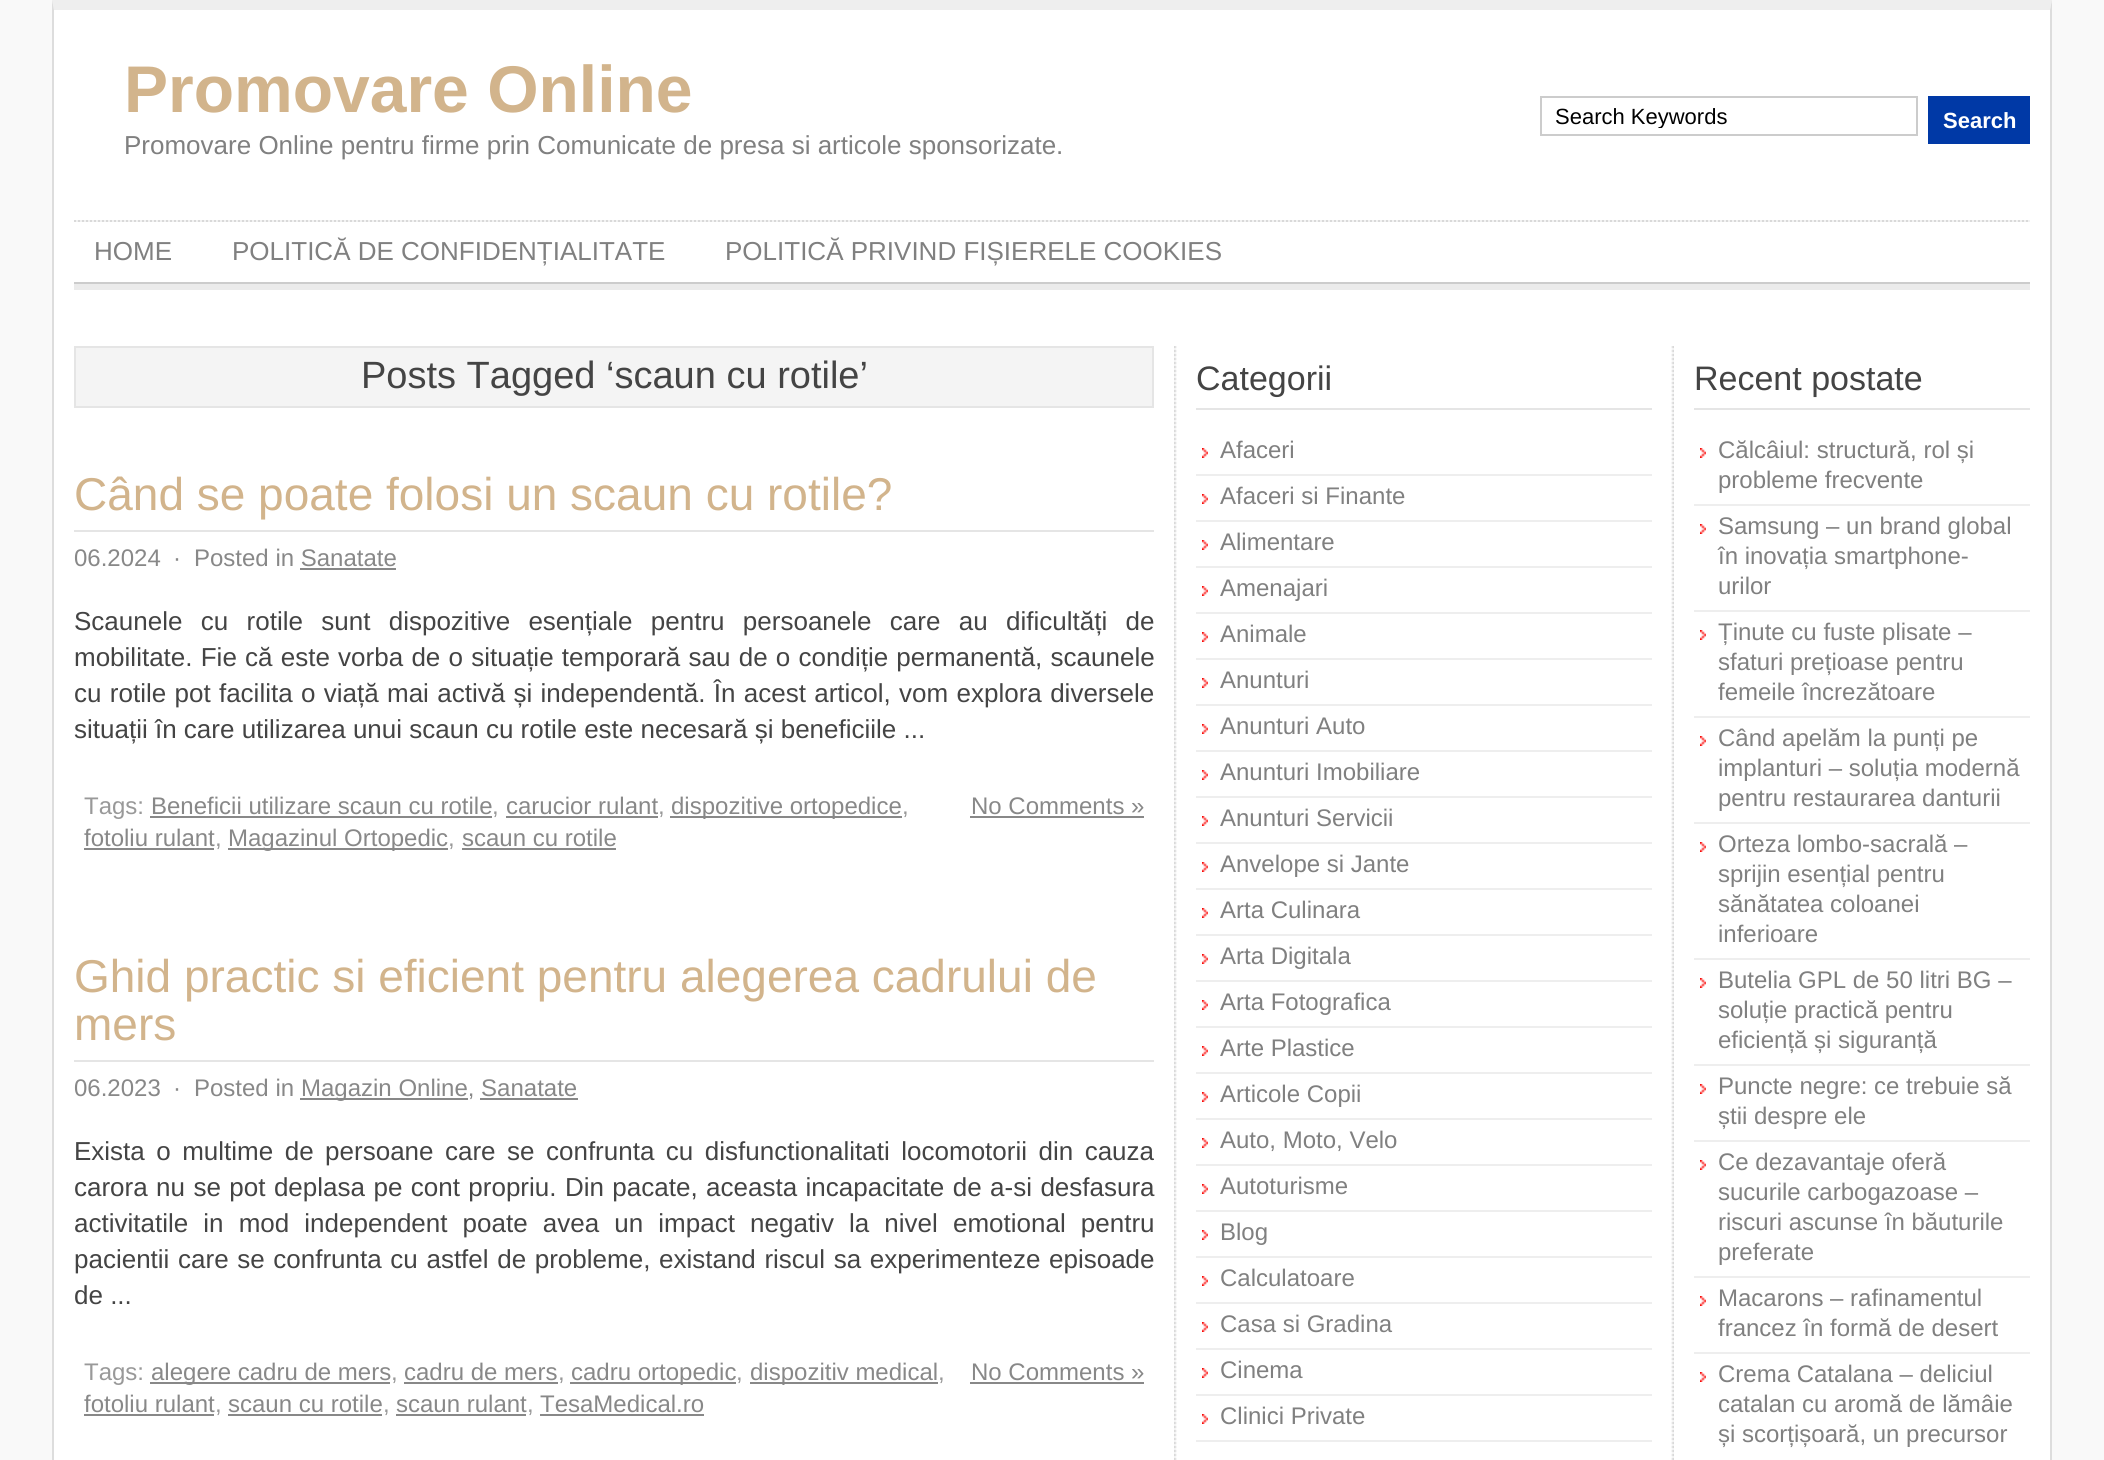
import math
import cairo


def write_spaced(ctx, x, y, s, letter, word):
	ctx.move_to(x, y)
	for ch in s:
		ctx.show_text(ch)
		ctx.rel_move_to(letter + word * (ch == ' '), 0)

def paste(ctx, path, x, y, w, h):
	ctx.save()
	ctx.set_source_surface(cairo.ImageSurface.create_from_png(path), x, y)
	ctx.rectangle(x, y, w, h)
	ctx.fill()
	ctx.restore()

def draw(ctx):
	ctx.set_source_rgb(0.973, 0.973, 0.973)
	ctx.paint()
	ctx.set_source_rgb(1, 1, 1)
	ctx.rectangle(54, 10, 1996, 1450)
	ctx.fill()
	ctx.set_source_rgb(0.933, 0.933, 0.933)
	ctx.new_path()
	ctx.move_to(52, 0)
	ctx.line_to(2052, 0)
	ctx.line_to(2050, 10)
	ctx.line_to(54, 10)
	ctx.close_path()
	ctx.fill()
	ctx.set_source_rgb(0.867, 0.867, 0.867)
	ctx.new_path()
	ctx.move_to(2052, 0)
	ctx.line_to(2052, 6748)
	ctx.line_to(2050, 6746)
	ctx.line_to(2050, 10)
	ctx.close_path()
	ctx.fill()
	ctx.new_path()
	ctx.move_to(52, 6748)
	ctx.line_to(52, 0)
	ctx.line_to(54, 10)
	ctx.line_to(54, 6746)
	ctx.close_path()
	ctx.fill()
	ctx.set_source_rgb(0.918, 0.918, 0.918)
	ctx.rectangle(74, 284, 1956, 6)
	ctx.fill()
	ctx.select_font_face('Liberation Sans', cairo.FONT_SLANT_NORMAL, cairo.FONT_WEIGHT_BOLD)
	ctx.set_font_size(66)
	ctx.set_source_rgb(0.824, 0.706, 0.549)
	ctx.move_to(124, 112)
	ctx.show_text('Promovare Online')
	ctx.select_font_face('Liberation Sans')
	ctx.set_font_size(26)
	ctx.set_source_rgb(0.502, 0.502, 0.502)
	ctx.move_to(124, 154)
	ctx.show_text('Promovare Online pentru firme prin Comunicate de presa si articole sponsorizate.')
	ctx.rectangle(1541, 97, 376, 38)
	ctx.set_source_rgb(0.8, 0.8, 0.8)
	ctx.stroke()
	ctx.save()
	ctx.rectangle(1554, 104, 350, 24)
	ctx.clip()
	ctx.set_font_size(22)
	ctx.set_source_rgb(0, 0, 0)
	ctx.move_to(1555, 124)
	ctx.show_text('Search Keywords')
	ctx.restore()
	ctx.set_source_rgb(0, 0.224, 0.651)
	ctx.rectangle(1928, 96, 102, 48)
	ctx.fill()
	ctx.select_font_face('Liberation Sans', cairo.FONT_SLANT_NORMAL, cairo.FONT_WEIGHT_BOLD)
	ctx.set_font_size(22)
	ctx.set_source_rgb(1, 1, 1)
	ctx.move_to(1943, 128)
	ctx.show_text('Search')
	paste(ctx, 'media/1.png', 74, 220, 1956, 2)
	ctx.set_source_rgb(0.8, 0.8, 0.8)
	ctx.rectangle(74, 282, 1956, 2)
	ctx.fill()
	ctx.select_font_face('Liberation Sans')
	ctx.set_font_size(26)
	ctx.set_source_rgb(0.502, 0.502, 0.502)
	for x, y, s in [
		(94, 260, 'HOME'),
		(232, 260, 'POLITICĂ DE CONFIDENȚIALITATE'),
		(725, 260, 'POLITICĂ PRIVIND FIȘIERELE COOKIES'),
	]:
		ctx.move_to(x, y)
		ctx.show_text(s)
	paste(ctx, 'media/2.png', 1174, 346, 500, 1114)
	ctx.set_source_rgb(0.957, 0.957, 0.957)
	ctx.rectangle(75, 347, 1078, 60)
	ctx.fill_preserve()
	ctx.set_source_rgb(0.898, 0.898, 0.898)
	ctx.stroke()
	ctx.set_font_size(38)
	ctx.set_source_rgb(0.267, 0.267, 0.267)
	ctx.move_to(361, 388)
	ctx.show_text('Posts Tagged ‘scaun cu rotile’')
	ctx.set_source_rgb(0.898, 0.898, 0.898)
	ctx.rectangle(74, 530, 1080, 2)
	ctx.fill()
	ctx.set_font_size(46)
	ctx.set_source_rgb(0.824, 0.706, 0.549)
	ctx.move_to(74, 510)
	ctx.show_text('Când se poate folosi un scaun cu rotile?')
	ctx.set_font_size(24)
	ctx.set_source_rgb(0.533, 0.533, 0.533)
	for x, y, s in [
		(74, 566, '06.2024'),
		(173, 566, '·'),
		(194, 566, 'Posted in Sanatate'),
	]:
		ctx.move_to(x, y)
		ctx.show_text(s)
	ctx.rectangle(300, 568, 96, 2)
	ctx.fill()
	ctx.set_font_size(26)
	ctx.set_source_rgb(0.267, 0.267, 0.267)
	write_spaced(ctx, 74, 630, 'Scaunele cu rotile sunt dispozitive esențiale pentru persoanele care au dificultăți de', 0, 11.1)
	write_spaced(ctx, 74, 666, 'mobilitate. Fie că este vorba de o situație temporară sau de o condiție permanentă, scaunele', 0, 1)
	write_spaced(ctx, 74, 702, 'cu rotile pot facilita o viață mai activă și independentă. În acest articol, vom explora diversele', 0, 1.1)
	ctx.move_to(74, 738)
	ctx.show_text('situații în care utilizarea unui scaun cu rotile este necesară și beneficiile ...')
	ctx.set_font_size(24)
	ctx.set_source_rgb(0.6, 0.6, 0.6)
	ctx.move_to(84, 814)
	ctx.show_text('Tags:')
	ctx.set_source_rgb(0.533, 0.533, 0.533)
	ctx.move_to(151, 814)
	ctx.show_text('Beneficii utilizare scaun cu rotile')
	ctx.rectangle(150, 816, 342, 2)
	ctx.fill()
	ctx.set_source_rgb(0.6, 0.6, 0.6)
	ctx.move_to(492, 814)
	ctx.show_text(',')
	ctx.set_source_rgb(0.533, 0.533, 0.533)
	ctx.move_to(506, 814)
	ctx.show_text('carucior rulant')
	ctx.rectangle(506, 816, 152, 2)
	ctx.fill()
	ctx.set_source_rgb(0.6, 0.6, 0.6)
	ctx.move_to(658, 814)
	ctx.show_text(',')
	ctx.set_source_rgb(0.533, 0.533, 0.533)
	ctx.rectangle(670, 816, 232, 2)
	ctx.fill()
	ctx.move_to(671, 814)
	ctx.show_text('dispozitive ortopedice')
	ctx.set_source_rgb(0.6, 0.6, 0.6)
	ctx.move_to(902, 814)
	ctx.show_text(',')
	ctx.set_source_rgb(0.533, 0.533, 0.533)
	ctx.move_to(971, 814)
	ctx.show_text('No Comments »')
	ctx.rectangle(970, 816, 174, 2)
	ctx.fill()
	ctx.move_to(84, 846)
	ctx.show_text('fotoliu rulant')
	ctx.rectangle(84, 848, 130, 2)
	ctx.fill()
	ctx.set_source_rgb(0.6, 0.6, 0.6)
	ctx.move_to(215, 846)
	ctx.show_text(',')
	ctx.set_source_rgb(0.533, 0.533, 0.533)
	ctx.rectangle(228, 848, 220, 2)
	ctx.fill()
	ctx.move_to(228, 846)
	ctx.show_text('Magazinul Ortopedic')
	ctx.set_source_rgb(0.6, 0.6, 0.6)
	ctx.move_to(448, 846)
	ctx.show_text(',')
	ctx.set_source_rgb(0.533, 0.533, 0.533)
	ctx.move_to(462, 846)
	ctx.show_text('scaun cu rotile')
	ctx.rectangle(462, 848, 154, 2)
	ctx.fill()
	ctx.set_source_rgb(0.898, 0.898, 0.898)
	ctx.rectangle(74, 1060, 1080, 2)
	ctx.fill()
	ctx.set_font_size(46)
	ctx.set_source_rgb(0.824, 0.706, 0.549)
	ctx.move_to(74, 992)
	ctx.show_text('Ghid practic si eficient pentru alegerea cadrului de')
	ctx.move_to(74, 1040)
	ctx.show_text('mers')
	ctx.set_font_size(24)
	ctx.set_source_rgb(0.533, 0.533, 0.533)
	for x, y, s in [
		(74, 1096, '06.2023'),
		(173, 1096, '·'),
		(194, 1096, 'Posted in'),
	]:
		ctx.move_to(x, y)
		ctx.show_text(s)
	ctx.rectangle(300, 1098, 168, 2)
	ctx.fill()
	ctx.move_to(301, 1096)
	ctx.show_text('Magazin Online, Sanatate')
	ctx.rectangle(480, 1098, 98, 2)
	ctx.fill()
	ctx.set_font_size(26)
	ctx.set_source_rgb(0.267, 0.267, 0.267)
	write_spaced(ctx, 74, 1160, 'Exista o multime de persoane care se confrunta cu disfunctionalitati locomotorii din cauza', 0, 4.25)
	write_spaced(ctx, 74, 1196, 'carora nu se pot deplasa pe cont propriu. Din pacate, aceasta incapacitate de a-si desfasura', 0, 1.2)
	write_spaced(ctx, 74, 1232, 'activitatile in mod independent poate avea un impact negativ la nivel emotional pentru', 0, 7.9)
	write_spaced(ctx, 74, 1268, 'pacientii care se confrunta cu astfel de probleme, existand riscul sa experimenteze episoade', 0, 1.4)
	ctx.move_to(74, 1304)
	ctx.show_text('de ...')
	ctx.set_font_size(24)
	ctx.set_source_rgb(0.6, 0.6, 0.6)
	ctx.move_to(84, 1380)
	ctx.show_text('Tags:')
	ctx.set_source_rgb(0.533, 0.533, 0.533)
	ctx.rectangle(150, 1382, 240, 2)
	ctx.fill()
	ctx.move_to(151, 1380)
	ctx.show_text('alegere cadru de mers')
	ctx.set_source_rgb(0.6, 0.6, 0.6)
	ctx.move_to(391, 1380)
	ctx.show_text(',')
	ctx.set_source_rgb(0.533, 0.533, 0.533)
	ctx.move_to(404, 1380)
	ctx.show_text('cadru de mers')
	ctx.rectangle(404, 1382, 154, 2)
	ctx.fill()
	ctx.set_source_rgb(0.6, 0.6, 0.6)
	ctx.move_to(558, 1380)
	ctx.show_text(',')
	ctx.set_source_rgb(0.533, 0.533, 0.533)
	ctx.rectangle(570, 1382, 166, 2)
	ctx.fill()
	ctx.move_to(571, 1380)
	ctx.show_text('cadru ortopedic')
	ctx.set_source_rgb(0.6, 0.6, 0.6)
	ctx.move_to(736, 1380)
	ctx.show_text(',')
	ctx.set_source_rgb(0.533, 0.533, 0.533)
	ctx.rectangle(750, 1382, 188, 2)
	ctx.fill()
	ctx.move_to(750, 1380)
	ctx.show_text('dispozitiv medical')
	ctx.set_source_rgb(0.6, 0.6, 0.6)
	ctx.move_to(938, 1380)
	ctx.show_text(',')
	ctx.set_source_rgb(0.533, 0.533, 0.533)
	ctx.move_to(971, 1380)
	ctx.show_text('No Comments »')
	ctx.rectangle(970, 1382, 174, 2)
	ctx.fill()
	ctx.move_to(84, 1412)
	ctx.show_text('fotoliu rulant')
	ctx.rectangle(84, 1414, 130, 2)
	ctx.fill()
	ctx.set_source_rgb(0.6, 0.6, 0.6)
	ctx.move_to(215, 1412)
	ctx.show_text(',')
	ctx.set_source_rgb(0.533, 0.533, 0.533)
	ctx.move_to(228, 1412)
	ctx.show_text('scaun cu rotile')
	ctx.rectangle(228, 1414, 154, 2)
	ctx.fill()
	ctx.set_source_rgb(0.6, 0.6, 0.6)
	ctx.move_to(383, 1412)
	ctx.show_text(',')
	ctx.set_source_rgb(0.533, 0.533, 0.533)
	ctx.move_to(396, 1412)
	ctx.show_text('scaun rulant')
	ctx.rectangle(396, 1414, 130, 2)
	ctx.fill()
	ctx.set_source_rgb(0.6, 0.6, 0.6)
	ctx.move_to(527, 1412)
	ctx.show_text(',')
	ctx.set_source_rgb(0.533, 0.533, 0.533)
	ctx.move_to(540, 1412)
	ctx.show_text('TesaMedical.ro')
	ctx.rectangle(540, 1414, 164, 2)
	ctx.fill()
	ctx.set_source_rgb(0.898, 0.898, 0.898)
	ctx.rectangle(1196, 408, 456, 2)
	ctx.fill()
	ctx.set_font_size(34)
	ctx.set_source_rgb(0.267, 0.267, 0.267)
	ctx.move_to(1196, 390)
	ctx.show_text('Categorii')
	paste(ctx, 'media/3.png', 1202, 448, 6, 10)
	ctx.set_source_rgb(0.933, 0.933, 0.933)
	ctx.rectangle(1196, 474, 456, 2)
	ctx.fill()
	ctx.set_font_size(24)
	ctx.set_source_rgb(0.502, 0.502, 0.502)
	ctx.move_to(1220, 458)
	ctx.show_text('Afaceri')
	paste(ctx, 'media/3.png', 1202, 494, 6, 10)
	ctx.set_source_rgb(0.933, 0.933, 0.933)
	ctx.rectangle(1196, 520, 456, 2)
	ctx.fill()
	ctx.set_source_rgb(0.502, 0.502, 0.502)
	ctx.move_to(1220, 504)
	ctx.show_text('Afaceri si Finante')
	paste(ctx, 'media/3.png', 1202, 540, 6, 10)
	ctx.set_source_rgb(0.933, 0.933, 0.933)
	ctx.rectangle(1196, 566, 456, 2)
	ctx.fill()
	ctx.set_source_rgb(0.502, 0.502, 0.502)
	ctx.move_to(1220, 550)
	ctx.show_text('Alimentare')
	paste(ctx, 'media/3.png', 1202, 586, 6, 10)
	ctx.set_source_rgb(0.933, 0.933, 0.933)
	ctx.rectangle(1196, 612, 456, 2)
	ctx.fill()
	ctx.set_source_rgb(0.502, 0.502, 0.502)
	ctx.move_to(1220, 596)
	ctx.show_text('Amenajari')
	paste(ctx, 'media/3.png', 1202, 632, 6, 10)
	ctx.set_source_rgb(0.933, 0.933, 0.933)
	ctx.rectangle(1196, 658, 456, 2)
	ctx.fill()
	ctx.set_source_rgb(0.502, 0.502, 0.502)
	ctx.move_to(1220, 642)
	ctx.show_text('Animale')
	paste(ctx, 'media/3.png', 1202, 678, 6, 10)
	ctx.set_source_rgb(0.933, 0.933, 0.933)
	ctx.rectangle(1196, 704, 456, 2)
	ctx.fill()
	ctx.set_source_rgb(0.502, 0.502, 0.502)
	ctx.move_to(1220, 688)
	ctx.show_text('Anunturi')
	paste(ctx, 'media/3.png', 1202, 724, 6, 10)
	ctx.set_source_rgb(0.933, 0.933, 0.933)
	ctx.rectangle(1196, 750, 456, 2)
	ctx.fill()
	ctx.set_source_rgb(0.502, 0.502, 0.502)
	ctx.move_to(1220, 734)
	ctx.show_text('Anunturi Auto')
	paste(ctx, 'media/3.png', 1202, 770, 6, 10)
	ctx.set_source_rgb(0.933, 0.933, 0.933)
	ctx.rectangle(1196, 796, 456, 2)
	ctx.fill()
	ctx.set_source_rgb(0.502, 0.502, 0.502)
	ctx.move_to(1220, 780)
	ctx.show_text('Anunturi Imobiliare')
	paste(ctx, 'media/3.png', 1202, 816, 6, 10)
	ctx.set_source_rgb(0.933, 0.933, 0.933)
	ctx.rectangle(1196, 842, 456, 2)
	ctx.fill()
	ctx.set_source_rgb(0.502, 0.502, 0.502)
	ctx.move_to(1220, 826)
	ctx.show_text('Anunturi Servicii')
	paste(ctx, 'media/3.png', 1202, 862, 6, 10)
	ctx.set_source_rgb(0.933, 0.933, 0.933)
	ctx.rectangle(1196, 888, 456, 2)
	ctx.fill()
	ctx.set_source_rgb(0.502, 0.502, 0.502)
	ctx.move_to(1220, 872)
	ctx.show_text('Anvelope si Jante')
	paste(ctx, 'media/3.png', 1202, 908, 6, 10)
	ctx.set_source_rgb(0.933, 0.933, 0.933)
	ctx.rectangle(1196, 934, 456, 2)
	ctx.fill()
	ctx.set_source_rgb(0.502, 0.502, 0.502)
	ctx.move_to(1220, 918)
	ctx.show_text('Arta Culinara')
	paste(ctx, 'media/3.png', 1202, 954, 6, 10)
	ctx.set_source_rgb(0.933, 0.933, 0.933)
	ctx.rectangle(1196, 980, 456, 2)
	ctx.fill()
	ctx.set_source_rgb(0.502, 0.502, 0.502)
	ctx.move_to(1220, 964)
	ctx.show_text('Arta Digitala')
	paste(ctx, 'media/3.png', 1202, 1000, 6, 10)
	ctx.set_source_rgb(0.933, 0.933, 0.933)
	ctx.rectangle(1196, 1026, 456, 2)
	ctx.fill()
	ctx.set_source_rgb(0.502, 0.502, 0.502)
	ctx.move_to(1220, 1010)
	ctx.show_text('Arta Fotografica')
	paste(ctx, 'media/3.png', 1202, 1046, 6, 10)
	ctx.set_source_rgb(0.933, 0.933, 0.933)
	ctx.rectangle(1196, 1072, 456, 2)
	ctx.fill()
	ctx.set_source_rgb(0.502, 0.502, 0.502)
	ctx.move_to(1220, 1056)
	ctx.show_text('Arte Plastice')
	paste(ctx, 'media/3.png', 1202, 1092, 6, 10)
	ctx.set_source_rgb(0.933, 0.933, 0.933)
	ctx.rectangle(1196, 1118, 456, 2)
	ctx.fill()
	ctx.set_source_rgb(0.502, 0.502, 0.502)
	ctx.move_to(1220, 1102)
	ctx.show_text('Articole Copii')
	paste(ctx, 'media/3.png', 1202, 1138, 6, 10)
	ctx.set_source_rgb(0.933, 0.933, 0.933)
	ctx.rectangle(1196, 1164, 456, 2)
	ctx.fill()
	ctx.set_source_rgb(0.502, 0.502, 0.502)
	ctx.move_to(1220, 1148)
	ctx.show_text('Auto, Moto, Velo')
	paste(ctx, 'media/3.png', 1202, 1184, 6, 10)
	ctx.set_source_rgb(0.933, 0.933, 0.933)
	ctx.rectangle(1196, 1210, 456, 2)
	ctx.fill()
	ctx.set_source_rgb(0.502, 0.502, 0.502)
	ctx.move_to(1220, 1194)
	ctx.show_text('Autoturisme')
	paste(ctx, 'media/3.png', 1202, 1230, 6, 10)
	ctx.set_source_rgb(0.933, 0.933, 0.933)
	ctx.rectangle(1196, 1256, 456, 2)
	ctx.fill()
	ctx.set_source_rgb(0.502, 0.502, 0.502)
	ctx.move_to(1220, 1240)
	ctx.show_text('Blog')
	paste(ctx, 'media/3.png', 1202, 1276, 6, 10)
	ctx.set_source_rgb(0.933, 0.933, 0.933)
	ctx.rectangle(1196, 1302, 456, 2)
	ctx.fill()
	ctx.set_source_rgb(0.502, 0.502, 0.502)
	ctx.move_to(1220, 1286)
	ctx.show_text('Calculatoare')
	paste(ctx, 'media/3.png', 1202, 1322, 6, 10)
	ctx.set_source_rgb(0.933, 0.933, 0.933)
	ctx.rectangle(1196, 1348, 456, 2)
	ctx.fill()
	ctx.set_source_rgb(0.502, 0.502, 0.502)
	ctx.move_to(1220, 1332)
	ctx.show_text('Casa si Gradina')
	paste(ctx, 'media/3.png', 1202, 1368, 6, 10)
	ctx.set_source_rgb(0.933, 0.933, 0.933)
	ctx.rectangle(1196, 1394, 456, 2)
	ctx.fill()
	ctx.set_source_rgb(0.502, 0.502, 0.502)
	ctx.move_to(1220, 1378)
	ctx.show_text('Cinema')
	paste(ctx, 'media/3.png', 1202, 1414, 6, 10)
	ctx.set_source_rgb(0.933, 0.933, 0.933)
	ctx.rectangle(1196, 1440, 456, 2)
	ctx.fill()
	ctx.set_source_rgb(0.502, 0.502, 0.502)
	ctx.move_to(1220, 1424)
	ctx.show_text('Clinici Private')
	ctx.set_source_rgb(0.898, 0.898, 0.898)
	ctx.rectangle(1694, 408, 336, 2)
	ctx.fill()
	ctx.set_font_size(34)
	ctx.set_source_rgb(0.267, 0.267, 0.267)
	ctx.move_to(1694, 390)
	ctx.show_text('Recent postate')
	paste(ctx, 'media/3.png', 1700, 448, 6, 10)
	ctx.set_source_rgb(0.933, 0.933, 0.933)
	ctx.rectangle(1694, 504, 336, 2)
	ctx.fill()
	ctx.set_font_size(24)
	ctx.set_source_rgb(0.502, 0.502, 0.502)
	ctx.move_to(1718, 458)
	ctx.show_text('Călcâiul: structură, rol și')
	ctx.move_to(1718, 488)
	ctx.show_text('probleme frecvente')
	paste(ctx, 'media/3.png', 1700, 524, 6, 10)
	ctx.set_source_rgb(0.933, 0.933, 0.933)
	ctx.rectangle(1694, 610, 336, 2)
	ctx.fill()
	ctx.set_source_rgb(0.502, 0.502, 0.502)
	for x, y, s in [
		(1718, 534, 'Samsung – un brand global'),
		(1718, 564, 'în inovația smartphone-'),
		(1718, 594, 'urilor'),
	]:
		ctx.move_to(x, y)
		ctx.show_text(s)
	paste(ctx, 'media/3.png', 1700, 630, 6, 10)
	ctx.set_source_rgb(0.933, 0.933, 0.933)
	ctx.rectangle(1694, 716, 336, 2)
	ctx.fill()
	ctx.set_source_rgb(0.502, 0.502, 0.502)
	for x, y, s in [
		(1718, 640, 'Ținute cu fuste plisate –'),
		(1718, 670, 'sfaturi prețioase pentru'),
		(1718, 700, 'femeile încrezătoare'),
	]:
		ctx.move_to(x, y)
		ctx.show_text(s)
	paste(ctx, 'media/3.png', 1700, 736, 6, 10)
	ctx.set_source_rgb(0.933, 0.933, 0.933)
	ctx.rectangle(1694, 822, 336, 2)
	ctx.fill()
	ctx.set_source_rgb(0.502, 0.502, 0.502)
	for x, y, s in [
		(1718, 746, 'Când apelăm la punți pe'),
		(1718, 776, 'implanturi – soluția modernă'),
		(1718, 806, 'pentru restaurarea danturii'),
	]:
		ctx.move_to(x, y)
		ctx.show_text(s)
	paste(ctx, 'media/3.png', 1700, 842, 6, 10)
	ctx.set_source_rgb(0.933, 0.933, 0.933)
	ctx.rectangle(1694, 958, 336, 2)
	ctx.fill()
	ctx.set_source_rgb(0.502, 0.502, 0.502)
	for x, y, s in [
		(1718, 852, 'Orteza lombo-sacrală –'),
		(1718, 882, 'sprijin esențial pentru'),
		(1718, 912, 'sănătatea coloanei'),
		(1718, 942, 'inferioare'),
	]:
		ctx.move_to(x, y)
		ctx.show_text(s)
	paste(ctx, 'media/3.png', 1700, 978, 6, 10)
	ctx.set_source_rgb(0.933, 0.933, 0.933)
	ctx.rectangle(1694, 1064, 336, 2)
	ctx.fill()
	ctx.set_source_rgb(0.502, 0.502, 0.502)
	for x, y, s in [
		(1718, 988, 'Butelia GPL de 50 litri BG –'),
		(1718, 1018, 'soluție practică pentru'),
		(1718, 1048, 'eficiență și siguranță'),
	]:
		ctx.move_to(x, y)
		ctx.show_text(s)
	paste(ctx, 'media/3.png', 1700, 1084, 6, 10)
	ctx.set_source_rgb(0.933, 0.933, 0.933)
	ctx.rectangle(1694, 1140, 336, 2)
	ctx.fill()
	ctx.set_source_rgb(0.502, 0.502, 0.502)
	ctx.move_to(1718, 1094)
	ctx.show_text('Puncte negre: ce trebuie să')
	ctx.move_to(1718, 1124)
	ctx.show_text('știi despre ele')
	paste(ctx, 'media/3.png', 1700, 1160, 6, 10)
	ctx.set_source_rgb(0.933, 0.933, 0.933)
	ctx.rectangle(1694, 1276, 336, 2)
	ctx.fill()
	ctx.set_source_rgb(0.502, 0.502, 0.502)
	for x, y, s in [
		(1718, 1170, 'Ce dezavantaje oferă'),
		(1718, 1200, 'sucurile carbogazoase –'),
		(1718, 1230, 'riscuri ascunse în băuturile'),
		(1718, 1260, 'preferate'),
	]:
		ctx.move_to(x, y)
		ctx.show_text(s)
	paste(ctx, 'media/3.png', 1700, 1296, 6, 10)
	ctx.set_source_rgb(0.933, 0.933, 0.933)
	ctx.rectangle(1694, 1352, 336, 2)
	ctx.fill()
	ctx.set_source_rgb(0.502, 0.502, 0.502)
	ctx.move_to(1718, 1306)
	ctx.show_text('Macarons – rafinamentul')
	ctx.move_to(1718, 1336)
	ctx.show_text('francez în formă de desert')
	paste(ctx, 'media/3.png', 1700, 1372, 6, 10)
	for x, y, s in [
		(1718, 1382, 'Crema Catalana – deliciul'),
		(1718, 1412, 'catalan cu aromă de lămâie'),
		(1718, 1442, 'și scorțișoară, un precursor'),
	]:
		ctx.move_to(x, y)
		ctx.show_text(s)


surface = cairo.ImageSurface(cairo.FORMAT_RGB24, 2104, 1460)
ctx = cairo.Context(surface)
options = cairo.FontOptions()
options.set_hint_metrics(cairo.HINT_METRICS_OFF)
options.set_hint_style(cairo.HINT_STYLE_NONE)
ctx.set_font_options(options)
ctx.set_miter_limit(4)
draw(ctx)
surface.write_to_png('image.png')
